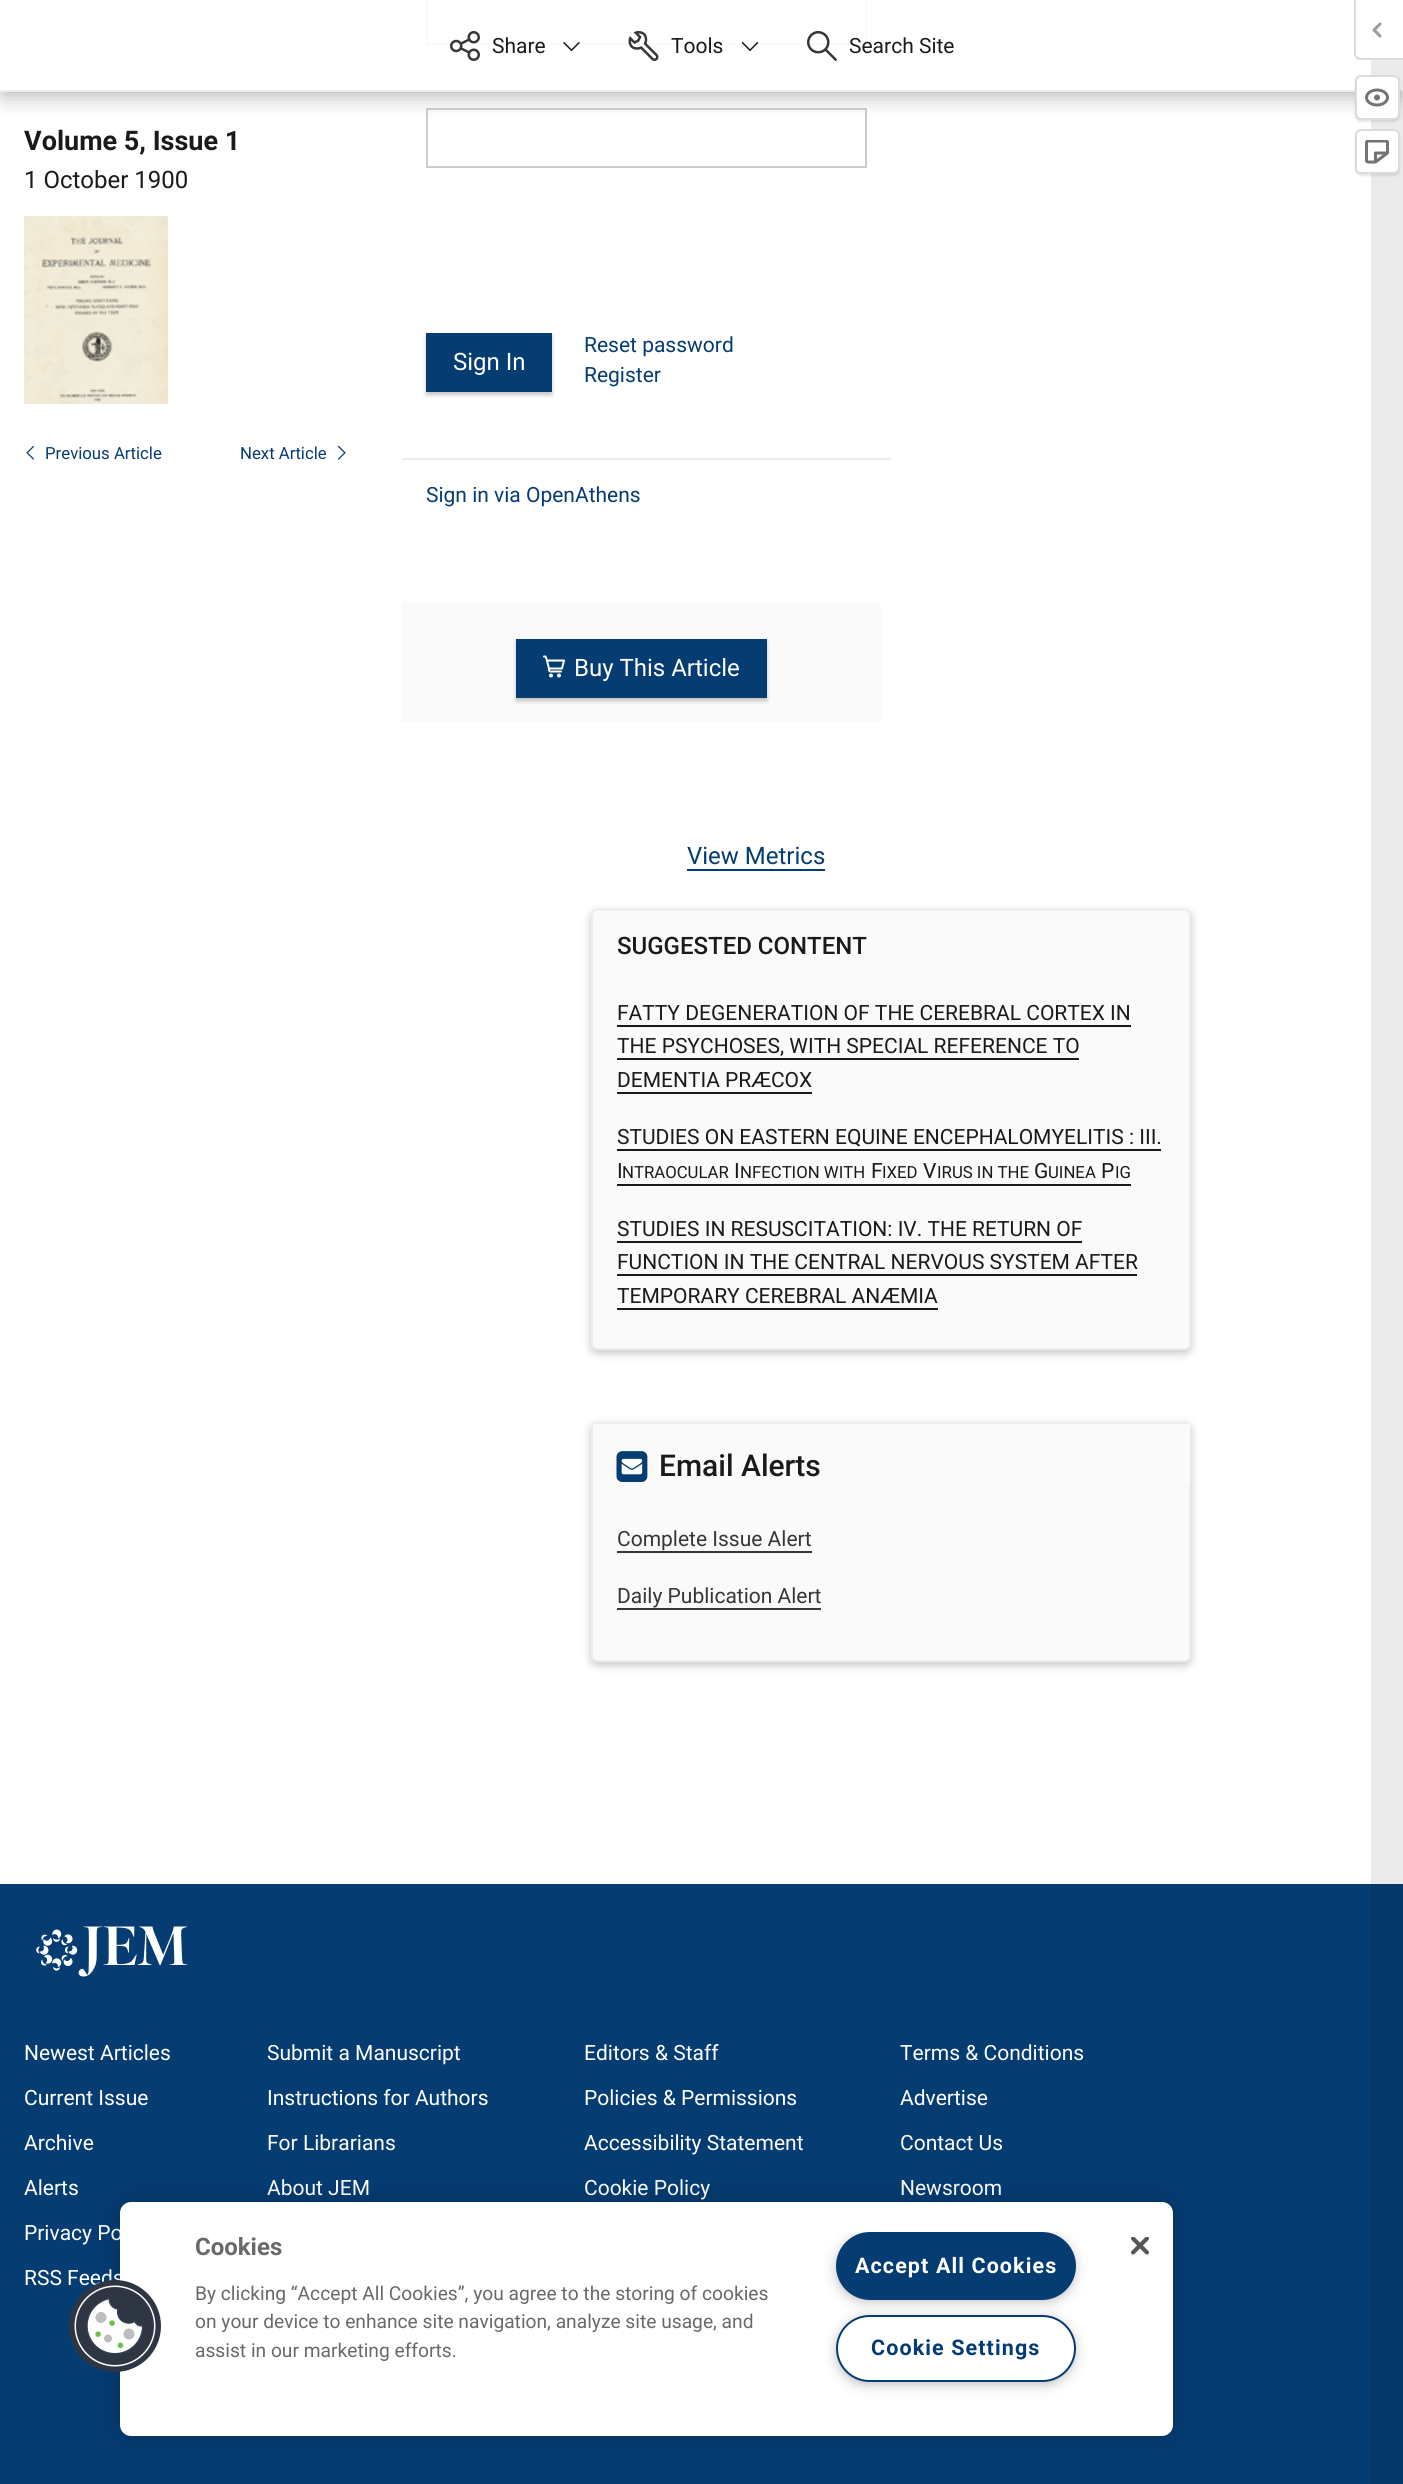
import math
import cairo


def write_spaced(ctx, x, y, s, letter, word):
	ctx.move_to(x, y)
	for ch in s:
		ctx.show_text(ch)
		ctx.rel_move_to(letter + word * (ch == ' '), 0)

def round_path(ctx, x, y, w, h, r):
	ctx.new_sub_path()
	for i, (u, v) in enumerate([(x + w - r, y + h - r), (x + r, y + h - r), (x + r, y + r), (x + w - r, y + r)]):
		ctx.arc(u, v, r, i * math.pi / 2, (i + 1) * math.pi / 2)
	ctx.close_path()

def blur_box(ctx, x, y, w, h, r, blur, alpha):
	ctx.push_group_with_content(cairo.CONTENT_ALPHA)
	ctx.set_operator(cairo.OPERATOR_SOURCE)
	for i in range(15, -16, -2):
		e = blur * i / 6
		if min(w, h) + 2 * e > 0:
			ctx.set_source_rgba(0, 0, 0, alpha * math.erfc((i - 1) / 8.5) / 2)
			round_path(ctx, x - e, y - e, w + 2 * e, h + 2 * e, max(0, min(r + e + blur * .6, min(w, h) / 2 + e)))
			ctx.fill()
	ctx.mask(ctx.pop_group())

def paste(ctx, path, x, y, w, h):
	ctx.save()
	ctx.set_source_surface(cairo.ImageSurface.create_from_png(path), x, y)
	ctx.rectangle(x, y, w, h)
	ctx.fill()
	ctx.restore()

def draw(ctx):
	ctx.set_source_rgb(1, 1, 1)
	ctx.paint()
	ctx.select_font_face('Roboto', cairo.FONT_SLANT_NORMAL, cairo.FONT_WEIGHT_BOLD)
	ctx.set_font_size(27)
	ctx.set_source_rgb(0.102, 0.102, 0.102)
	ctx.move_to(24, 150)
	ctx.show_text('Volume 5, Issue 1')
	ctx.select_font_face('Roboto')
	ctx.set_font_size(24)
	ctx.move_to(24, 188)
	ctx.show_text('1 October 1900')
	paste(ctx, 'media/1.png', 24, 216, 144, 188)
	paste(ctx, 'media/2.png', 26, 445, 8, 15)
	ctx.set_font_size(16.75)
	ctx.set_source_rgb(0.02, 0.235, 0.447)
	ctx.move_to(45, 459)
	ctx.show_text('Previous Article')
	ctx.move_to(240, 459)
	ctx.show_text('Next Article')
	paste(ctx, 'media/3.png', 338, 445, 8, 15)
	ctx.rectangle(427, -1, 439, 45)
	ctx.set_source_rgb(0.8, 0.8, 0.8)
	ctx.stroke()
	ctx.rectangle(427, 109, 439, 58)
	ctx.stroke()
	ctx.save()
	ctx.rectangle(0, 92, 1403, 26)
	ctx.clip()
	ctx.set_source_rgb(0.686, 0.686, 0.686)
	blur_box(ctx, 3, 9, 1398, 86, 0, 11, 1)
	ctx.restore()
	ctx.set_source_rgba(1, 1, 1, 0.9)
	ctx.rectangle(426, 0, 441, 45)
	ctx.fill()
	ctx.set_source_rgb(0.929, 0.929, 0.929)
	ctx.rectangle(0, 90, 1403, 2)
	ctx.fill()
	paste(ctx, 'media/4.png', 450, 31, 30, 30)
	ctx.set_font_size(21)
	ctx.set_source_rgb(0.102, 0.102, 0.102)
	ctx.move_to(492, 53)
	ctx.show_text('Share')
	paste(ctx, 'media/5.png', 563, 42, 17, 10)
	paste(ctx, 'media/6.png', 628, 31, 31, 30)
	ctx.move_to(671, 53)
	ctx.show_text('Tools')
	paste(ctx, 'media/7.png', 741, 42, 18, 10)
	paste(ctx, 'media/8.png', 807, 31, 30, 30)
	ctx.move_to(849, 53)
	ctx.show_text('Search Site')
	ctx.set_source_rgb(0.02, 0.235, 0.447)
	ctx.move_to(584, 352)
	ctx.show_text('Reset password')
	ctx.set_source_rgb(0.263, 0.22, 0.22)
	blur_box(ctx, 426, 336, 126, 59, 0, 2, 0.3)
	ctx.set_source_rgb(0.02, 0.235, 0.447)
	ctx.rectangle(426, 333, 126, 59)
	ctx.fill()
	ctx.set_font_size(24)
	ctx.set_source_rgb(1, 1, 1)
	ctx.move_to(453, 370)
	ctx.show_text('Sign In')
	ctx.set_font_size(21)
	ctx.set_source_rgb(0.02, 0.235, 0.447)
	ctx.move_to(584, 382)
	ctx.show_text('Register')
	ctx.set_source_rgb(0.929, 0.929, 0.929)
	ctx.rectangle(402, 458, 489, 2)
	ctx.fill()
	ctx.set_source_rgb(0.02, 0.235, 0.447)
	ctx.move_to(426, 502)
	ctx.show_text('Sign in via OpenAthens')
	ctx.set_source_rgb(0.98, 0.98, 0.98)
	ctx.rectangle(402, 603, 479, 119)
	ctx.fill()
	ctx.set_source_rgb(0.263, 0.22, 0.22)
	blur_box(ctx, 516, 642, 251, 59, 0, 2, 0.3)
	ctx.set_source_rgb(0.02, 0.235, 0.447)
	ctx.rectangle(516, 639, 251, 59)
	ctx.fill()
	paste(ctx, 'media/9.png', 543, 655, 22, 23)
	ctx.set_font_size(24)
	ctx.set_source_rgb(1, 1, 1)
	ctx.move_to(574, 676)
	ctx.show_text('Buy This Article')
	ctx.set_source_rgb(0.02, 0.235, 0.447)
	ctx.move_to(687, 864)
	ctx.show_text('View Metrics')
	ctx.rectangle(687, 869, 138, 2)
	ctx.fill()
	ctx.set_source_rgb(0.263, 0.22, 0.22)
	blur_box(ctx, 591, 912, 600, 441, 6, 4.5, 0.3)
	ctx.set_source_rgb(0.98, 0.98, 0.98)
	round_path(ctx, 592, 910, 598, 439, 5)
	ctx.fill_preserve()
	ctx.set_source_rgb(0.929, 0.929, 0.929)
	ctx.stroke()
	ctx.select_font_face('Roboto Medium')
	ctx.set_source_rgb(0.102, 0.102, 0.102)
	ctx.move_to(617, 954)
	ctx.show_text('SUGGESTED CONTENT')
	ctx.select_font_face('Roboto')
	ctx.set_font_size(21)
	ctx.move_to(617, 1020)
	ctx.show_text('FATTY DEGENERATION OF THE CEREBRAL CORTEX IN')
	ctx.rectangle(617, 1025, 514, 2)
	ctx.fill()
	ctx.move_to(617, 1053)
	ctx.show_text('THE PSYCHOSES, WITH SPECIAL REFERENCE TO')
	ctx.rectangle(617, 1058, 462, 2)
	ctx.fill()
	ctx.move_to(617, 1087)
	ctx.show_text('DEMENTIA PRÆCOX')
	ctx.rectangle(617, 1092, 195, 2)
	ctx.fill()
	ctx.move_to(617, 1144)
	ctx.show_text('STUDIES ON EASTERN EQUINE ENCEPHALOMYELITIS : III.')
	ctx.rectangle(617, 1149, 544, 2)
	ctx.fill()
	ctx.move_to(617, 1178)
	ctx.show_text('I')
	ctx.set_font_size(16.75)
	ctx.move_to(622, 1178)
	ctx.show_text('NTRAOCULAR')
	ctx.set_font_size(21)
	ctx.move_to(734, 1178)
	ctx.show_text('I')
	ctx.set_font_size(16.75)
	ctx.move_to(740, 1178)
	ctx.show_text('NFECTION WITH')
	ctx.set_font_size(21)
	ctx.move_to(871, 1178)
	ctx.show_text('F')
	ctx.set_font_size(16.75)
	ctx.move_to(882, 1178)
	ctx.show_text('IXED')
	ctx.set_font_size(21)
	ctx.move_to(923, 1178)
	ctx.show_text('V')
	ctx.set_font_size(16.75)
	ctx.move_to(937, 1178)
	ctx.show_text('IRUS IN THE')
	ctx.set_font_size(21)
	ctx.move_to(1034, 1178)
	ctx.show_text('G')
	ctx.set_font_size(16.75)
	ctx.move_to(1048, 1178)
	ctx.show_text('UINEA')
	ctx.rectangle(617, 1184, 514, 2)
	ctx.fill()
	ctx.set_font_size(21)
	ctx.move_to(1101, 1178)
	ctx.show_text('P')
	ctx.set_font_size(16.75)
	ctx.move_to(1115, 1178)
	ctx.show_text('IG')
	ctx.set_font_size(21)
	ctx.move_to(617, 1236)
	ctx.show_text('STUDIES IN RESUSCITATION: IV. THE RETURN OF')
	ctx.rectangle(617, 1241, 465, 2)
	ctx.fill()
	ctx.move_to(617, 1269)
	ctx.show_text('FUNCTION IN THE CENTRAL NERVOUS SYSTEM AFTER')
	ctx.rectangle(617, 1274, 520, 2)
	ctx.fill()
	ctx.move_to(617, 1303)
	ctx.show_text('TEMPORARY CEREBRAL ANÆMIA')
	ctx.rectangle(617, 1308, 321, 2)
	ctx.fill()
	ctx.set_source_rgb(0.263, 0.22, 0.22)
	blur_box(ctx, 591, 1425, 600, 240, 6, 4.5, 0.3)
	ctx.set_source_rgb(0.98, 0.98, 0.98)
	round_path(ctx, 592, 1423, 598, 238, 5)
	ctx.fill_preserve()
	ctx.set_source_rgb(0.929, 0.929, 0.929)
	ctx.stroke()
	ctx.set_source_rgb(0.98, 0.98, 0.98)
	ctx.rectangle(593, 1424, 597, 61)
	ctx.fill()
	paste(ctx, 'media/10.png', 616, 1451, 32, 31)
	ctx.select_font_face('Roboto Medium')
	ctx.set_font_size(30)
	ctx.set_source_rgb(0.102, 0.102, 0.102)
	ctx.move_to(659, 1476)
	ctx.show_text('Email Alerts')
	ctx.select_font_face('Roboto')
	ctx.set_font_size(21)
	ctx.set_source_rgb(0.22, 0.212, 0.212)
	ctx.move_to(617, 1546)
	ctx.show_text('Complete Issue Alert')
	ctx.rectangle(617, 1551, 195, 2)
	ctx.fill()
	ctx.move_to(617, 1603)
	ctx.show_text('Daily Publication Alert')
	ctx.rectangle(617, 1608, 204, 2)
	ctx.fill()
	ctx.set_source_rgb(0.02, 0.235, 0.447)
	ctx.rectangle(0, 1884, 1403, 600)
	ctx.fill()
	ctx.set_source_rgba(0, 0, 0, 0.08)
	ctx.rectangle(1371, 60, 32, 2424)
	ctx.fill()
	ctx.set_source_rgb(0.859, 0.859, 0.859)
	ctx.set_fill_rule(cairo.FILL_RULE_EVEN_ODD)
	ctx.new_path()
	ctx.move_to(1354, 0)
	ctx.line_to(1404, 0)
	ctx.line_to(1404, 60)
	ctx.line_to(1360, 60)
	ctx.curve_to(1357, 60, 1354, 57, 1354, 54)
	ctx.close_path()
	ctx.move_to(1356, 0)
	ctx.line_to(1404, 0)
	ctx.line_to(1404, 58)
	ctx.line_to(1360, 58)
	ctx.curve_to(1358, 58, 1356, 56, 1356, 54)
	ctx.close_path()
	ctx.fill()
	paste(ctx, 'media/11.png', 1372, 22, 10, 16)
	ctx.set_source_rgb(0, 0, 0)
	blur_box(ctx, 1355, 77, 45, 45, 6, 1, 0.1)
	ctx.set_source_rgb(1, 1, 1)
	round_path(ctx, 1356, 76, 43, 43, 5)
	ctx.fill_preserve()
	ctx.set_source_rgb(0.859, 0.859, 0.859)
	ctx.stroke()
	paste(ctx, 'media/12.png', 1365, 88, 24, 19)
	ctx.set_source_rgb(0, 0, 0)
	blur_box(ctx, 1355, 131, 45, 45, 6, 1, 0.1)
	ctx.set_source_rgb(1, 1, 1)
	round_path(ctx, 1356, 130, 43, 43, 5)
	ctx.fill_preserve()
	ctx.set_source_rgb(0.859, 0.859, 0.859)
	ctx.stroke()
	paste(ctx, 'media/13.png', 1365, 140, 24, 24)
	paste(ctx, 'media/14.png', 36, 1926, 152, 51)
	ctx.set_source_rgb(1, 1, 1)
	for x, y, s in [
		(24, 2060, 'Newest Articles'),
		(24, 2105, 'Current Issue'),
		(24, 2150, 'Archive'),
		(24, 2195, 'Alerts'),
		(267, 2060, 'Submit a Manuscript'),
		(267, 2105, 'Instructions for Authors'),
		(267, 2150, 'For Librarians'),
		(267, 2195, 'About JEM'),
		(584, 2060, 'Editors & Staff'),
		(584, 2105, 'Policies & Permissions'),
		(584, 2150, 'Accessibility Statement'),
		(584, 2195, 'Cookie Policy'),
		(900, 2060, 'Terms & Conditions'),
		(900, 2105, 'Advertise'),
		(900, 2150, 'Contact Us'),
		(900, 2195, 'Newsroom'),
		(24, 2240, 'Privacy Po'),
		(24, 2285, 'RSS Feeds'),
	]:
		ctx.move_to(x, y)
		ctx.show_text(s)
	ctx.set_source_rgb(0, 0, 0)
	blur_box(ctx, 120, 2202, 1053, 234, 11, 13.5, 0.2)
	ctx.set_source_rgb(1, 1, 1)
	round_path(ctx, 120, 2202, 1053, 234, 11)
	ctx.fill()
	paste(ctx, 'media/15.png', 69, 2280, 92, 92)
	ctx.select_font_face('Roboto', cairo.FONT_SLANT_NORMAL, cairo.FONT_WEIGHT_BOLD)
	ctx.set_font_size(24)
	ctx.set_source_rgb(0.412, 0.412, 0.412)
	ctx.move_to(195, 2255)
	ctx.show_text('Cookies')
	ctx.select_font_face('Roboto')
	ctx.set_font_size(19.2)
	for x, y, s in [
		(195, 2300, 'By clicking “Accept All Cookies”, you agree to the storing of cookies'),
		(195, 2328, 'on your device to enhance site navigation, analyze site usage, and'),
		(195, 2357, 'assist in our marketing efforts.'),
	]:
		ctx.move_to(x, y)
		ctx.show_text(s)
	ctx.save()
	ctx.set_fill_rule(cairo.FILL_RULE_WINDING)
	ctx.rectangle(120, 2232, 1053, 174)
	ctx.clip()
	ctx.set_source_rgb(0.6, 0.6, 0.6)
	blur_box(ctx, 840, 2240, 231, 58, 29, 7.5, 1)
	ctx.restore()
	ctx.set_source_rgb(0.02, 0.235, 0.447)
	round_path(ctx, 837, 2233, 238, 66, 33)
	ctx.fill_preserve()
	ctx.stroke()
	ctx.select_font_face('Roboto', cairo.FONT_SLANT_NORMAL, cairo.FONT_WEIGHT_BOLD)
	ctx.set_font_size(21.5)
	ctx.set_source_rgb(1, 1, 1)
	write_spaced(ctx, 855, 2273, 'Accept All Cookies', 1.1, 0)
	ctx.set_source_rgb(0.6, 0.6, 0.6)
	blur_box(ctx, 840, 2322, 231, 59, 29.5, 7.5, 1)
	ctx.set_source_rgb(1, 1, 1)
	round_path(ctx, 837, 2316, 238, 65, 32.5)
	ctx.fill_preserve()
	ctx.set_source_rgb(0.02, 0.235, 0.447)
	ctx.stroke()
	write_spaced(ctx, 871, 2355, 'Cookie Settings', 1.1, 0)
	paste(ctx, 'media/16.png', 1131, 2237, 18, 18)


surface = cairo.ImageSurface(cairo.FORMAT_RGB24, 1403, 2484)
ctx = cairo.Context(surface)
options = cairo.FontOptions()
options.set_hint_metrics(cairo.HINT_METRICS_OFF)
options.set_hint_style(cairo.HINT_STYLE_NONE)
ctx.set_font_options(options)
ctx.set_miter_limit(4)
draw(ctx)
surface.write_to_png('image.png')
